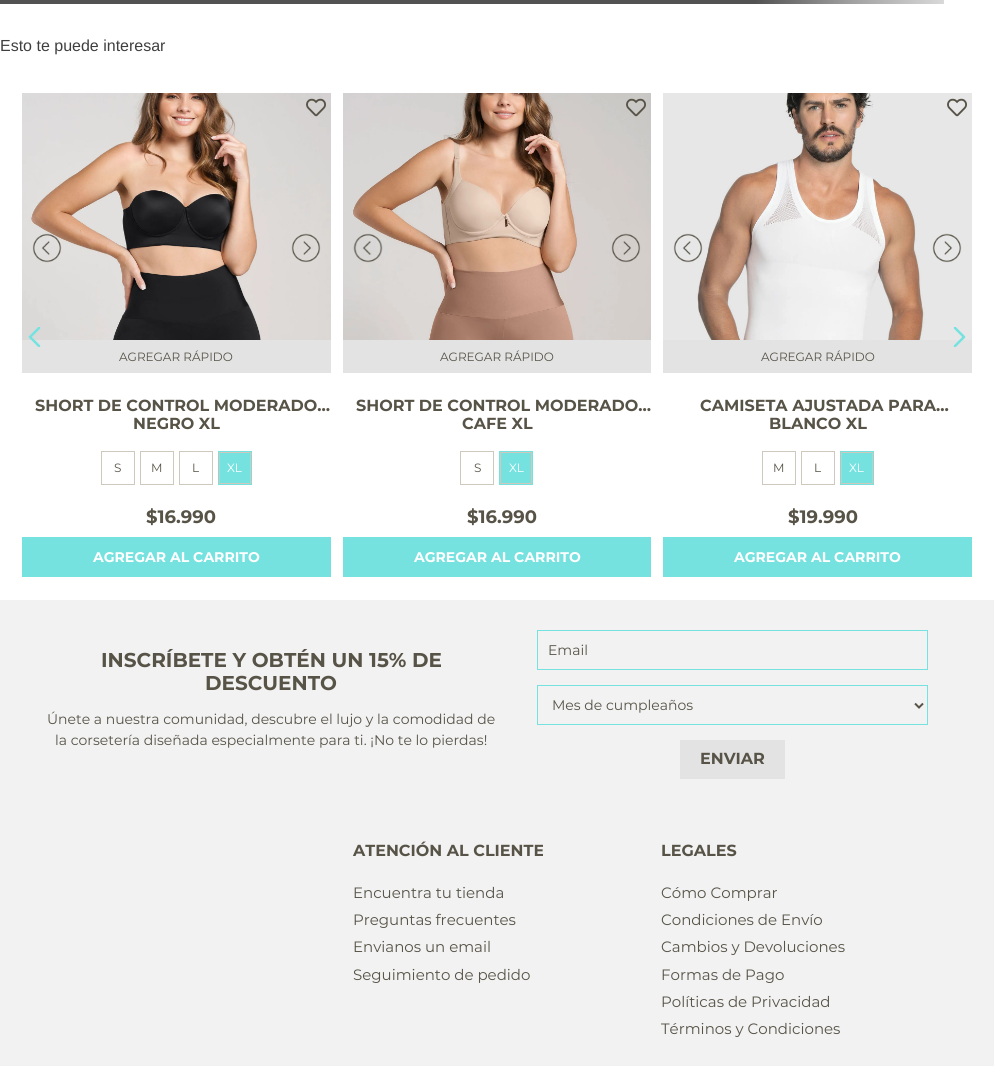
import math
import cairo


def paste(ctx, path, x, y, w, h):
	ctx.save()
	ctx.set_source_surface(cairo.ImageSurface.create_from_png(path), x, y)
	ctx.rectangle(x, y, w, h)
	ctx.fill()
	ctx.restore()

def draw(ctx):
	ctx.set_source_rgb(1, 1, 1)
	ctx.paint()
	gradient = cairo.LinearGradient(0, 2, 944, 2)
	gradient.add_color_stop_rgba(0.8, 0.322, 0.322, 0.325, 1)
	gradient.add_color_stop_rgba(0.9, 0.624, 0.624, 0.627, 1)
	gradient.add_color_stop_rgba(1, 0.851, 0.851, 0.851, 1)
	ctx.set_source(gradient)
	ctx.rectangle(0, 0, 944, 4)
	ctx.fill()
	ctx.select_font_face('Liberation Sans')
	ctx.set_font_size(16)
	ctx.set_source_rgb(0.247, 0.247, 0.251)
	ctx.move_to(0, 51)
	ctx.show_text('Esto te puede interesar')
	paste(ctx, 'media/1.png', 22, 93, 309, 247)
	ctx.set_source_rgb(0.89, 0.89, 0.89)
	ctx.rectangle(22, 340, 309, 33)
	ctx.fill()
	ctx.save()
	ctx.rectangle(25, 327, 20, 20)
	ctx.clip()
	ctx.new_path()
	ctx.move_to(39, 328)
	ctx.line_to(30, 337)
	ctx.line_to(39, 346)
	ctx.set_source_rgb(0.459, 0.886, 0.878)
	ctx.set_line_width(2.5)
	ctx.set_line_cap(cairo.LINE_CAP_ROUND)
	ctx.set_line_join(cairo.LINE_JOIN_ROUND)
	ctx.stroke()
	ctx.restore()
	paste(ctx, 'media/9.png', 663, 93, 309, 247)
	ctx.rectangle(663, 340, 309, 33)
	ctx.fill()
	ctx.save()
	ctx.rectangle(949, 327, 20, 20)
	ctx.clip()
	ctx.new_path()
	ctx.move_to(955, 346)
	ctx.line_to(964, 337)
	ctx.line_to(955, 328)
	ctx.set_source_rgb(0.459, 0.886, 0.878)
	ctx.set_line_width(2.5)
	ctx.set_line_cap(cairo.LINE_CAP_ROUND)
	ctx.set_line_join(cairo.LINE_JOIN_ROUND)
	ctx.stroke()
	ctx.restore()
	paste(ctx, 'media/2.png', 32, 233, 30, 30)
	paste(ctx, 'media/3.png', 291, 233, 30, 30)
	paste(ctx, 'media/4.png', 306, 98, 20, 19)
	ctx.select_font_face('Montserrat')
	ctx.set_font_size(12)
	ctx.set_source_rgb(0.341, 0.325, 0.278)
	ctx.move_to(119, 361)
	ctx.show_text('AGREGAR RÁPIDO')
	ctx.select_font_face('Montserrat', cairo.FONT_SLANT_NORMAL, cairo.FONT_WEIGHT_BOLD)
	ctx.set_font_size(16)
	ctx.move_to(35, 411)
	ctx.show_text('SHORT DE CONTROL MODERADO…')
	ctx.move_to(133, 429)
	ctx.show_text('NEGRO XL')
	ctx.rectangle(101.5, 451.5, 33, 33)
	ctx.set_source_rgb(0.812, 0.788, 0.741)
	ctx.set_line_width(1)
	ctx.stroke()
	ctx.select_font_face('Montserrat')
	ctx.set_font_size(12)
	ctx.set_source_rgb(0.341, 0.325, 0.278)
	ctx.move_to(114, 472)
	ctx.show_text('S')
	ctx.rectangle(140.5, 451.5, 33, 33)
	ctx.set_source_rgb(0.812, 0.788, 0.741)
	ctx.stroke()
	ctx.set_source_rgb(0.341, 0.325, 0.278)
	ctx.move_to(151, 472)
	ctx.show_text('M')
	ctx.rectangle(179.5, 451.5, 33, 33)
	ctx.set_source_rgb(0.812, 0.788, 0.741)
	ctx.stroke()
	ctx.set_source_rgb(0.341, 0.325, 0.278)
	ctx.move_to(192, 472)
	ctx.show_text('L')
	ctx.set_source_rgb(0.459, 0.886, 0.878)
	ctx.rectangle(218, 451, 34, 34)
	ctx.fill()
	ctx.rectangle(219.5, 452.5, 31, 31)
	ctx.set_source_rgb(0.812, 0.788, 0.741)
	ctx.stroke()
	ctx.set_source_rgb(1, 1, 1)
	ctx.move_to(227, 472)
	ctx.show_text('XL')
	ctx.select_font_face('Montserrat', cairo.FONT_SLANT_NORMAL, cairo.FONT_WEIGHT_BOLD)
	ctx.set_font_size(18)
	ctx.set_source_rgb(0.341, 0.325, 0.278)
	ctx.move_to(146, 523)
	ctx.show_text('$16.990')
	ctx.set_source_rgb(0.459, 0.886, 0.878)
	ctx.rectangle(22, 537, 309, 40)
	ctx.fill()
	ctx.set_font_size(14)
	ctx.set_source_rgb(1, 1, 1)
	ctx.move_to(93, 562)
	ctx.show_text('AGREGAR AL CARRITO')
	paste(ctx, 'media/5.png', 343, 93, 308, 247)
	paste(ctx, 'media/6.png', 353, 233, 30, 30)
	paste(ctx, 'media/7.png', 611, 233, 30, 30)
	paste(ctx, 'media/8.png', 626, 98, 20, 19)
	ctx.set_source_rgb(0.89, 0.89, 0.89)
	ctx.rectangle(343, 340, 308, 33)
	ctx.fill()
	ctx.select_font_face('Montserrat')
	ctx.set_font_size(12)
	ctx.set_source_rgb(0.341, 0.325, 0.278)
	ctx.move_to(440, 361)
	ctx.show_text('AGREGAR RÁPIDO')
	ctx.select_font_face('Montserrat', cairo.FONT_SLANT_NORMAL, cairo.FONT_WEIGHT_BOLD)
	ctx.set_font_size(16)
	ctx.move_to(356, 411)
	ctx.show_text('SHORT DE CONTROL MODERADO…')
	ctx.move_to(462, 429)
	ctx.show_text('CAFE XL')
	ctx.rectangle(460.5, 451.5, 33, 33)
	ctx.set_source_rgb(0.812, 0.788, 0.741)
	ctx.stroke()
	ctx.select_font_face('Montserrat')
	ctx.set_font_size(12)
	ctx.set_source_rgb(0.341, 0.325, 0.278)
	ctx.move_to(474, 472)
	ctx.show_text('S')
	ctx.set_source_rgb(0.459, 0.886, 0.878)
	ctx.rectangle(499, 451, 34, 34)
	ctx.fill()
	ctx.rectangle(500.5, 452.5, 31, 31)
	ctx.set_source_rgb(0.812, 0.788, 0.741)
	ctx.stroke()
	ctx.set_source_rgb(1, 1, 1)
	ctx.move_to(509, 472)
	ctx.show_text('XL')
	ctx.select_font_face('Montserrat', cairo.FONT_SLANT_NORMAL, cairo.FONT_WEIGHT_BOLD)
	ctx.set_font_size(18)
	ctx.set_source_rgb(0.341, 0.325, 0.278)
	ctx.move_to(467, 523)
	ctx.show_text('$16.990')
	ctx.set_source_rgb(0.459, 0.886, 0.878)
	ctx.rectangle(343, 537, 308, 40)
	ctx.fill()
	ctx.set_font_size(14)
	ctx.set_source_rgb(1, 1, 1)
	ctx.move_to(414, 562)
	ctx.show_text('AGREGAR AL CARRITO')
	paste(ctx, 'media/10.png', 673, 233, 30, 30)
	paste(ctx, 'media/11.png', 932, 233, 30, 30)
	paste(ctx, 'media/12.png', 947, 98, 20, 19)
	ctx.select_font_face('Montserrat')
	ctx.set_font_size(12)
	ctx.set_source_rgb(0.341, 0.325, 0.278)
	ctx.move_to(761, 361)
	ctx.show_text('AGREGAR RÁPIDO')
	ctx.select_font_face('Montserrat', cairo.FONT_SLANT_NORMAL, cairo.FONT_WEIGHT_BOLD)
	ctx.set_font_size(16)
	ctx.move_to(700, 411)
	ctx.show_text('CAMISETA AJUSTADA PARA…')
	ctx.move_to(769, 429)
	ctx.show_text('BLANCO XL')
	ctx.rectangle(762.5, 451.5, 33, 33)
	ctx.set_source_rgb(0.812, 0.788, 0.741)
	ctx.stroke()
	ctx.select_font_face('Montserrat')
	ctx.set_font_size(12)
	ctx.set_source_rgb(0.341, 0.325, 0.278)
	ctx.move_to(773, 472)
	ctx.show_text('M')
	ctx.rectangle(801.5, 451.5, 33, 33)
	ctx.set_source_rgb(0.812, 0.788, 0.741)
	ctx.stroke()
	ctx.set_source_rgb(0.341, 0.325, 0.278)
	ctx.move_to(814, 472)
	ctx.show_text('L')
	ctx.set_source_rgb(0.459, 0.886, 0.878)
	ctx.rectangle(840, 451, 34, 34)
	ctx.fill()
	ctx.rectangle(841.5, 452.5, 31, 31)
	ctx.set_source_rgb(0.812, 0.788, 0.741)
	ctx.stroke()
	ctx.set_source_rgb(1, 1, 1)
	ctx.move_to(849, 472)
	ctx.show_text('XL')
	ctx.select_font_face('Montserrat', cairo.FONT_SLANT_NORMAL, cairo.FONT_WEIGHT_BOLD)
	ctx.set_font_size(18)
	ctx.set_source_rgb(0.341, 0.325, 0.278)
	ctx.move_to(788, 523)
	ctx.show_text('$19.990')
	ctx.set_source_rgb(0.459, 0.886, 0.878)
	ctx.rectangle(663, 537, 309, 40)
	ctx.fill()
	ctx.set_font_size(14)
	ctx.set_source_rgb(1, 1, 1)
	ctx.move_to(734, 562)
	ctx.show_text('AGREGAR AL CARRITO')
	ctx.set_source_rgb(0.949, 0.949, 0.949)
	ctx.rectangle(0, 600, 994, 466)
	ctx.fill()
	ctx.set_font_size(20)
	ctx.set_source_rgb(0.341, 0.325, 0.278)
	ctx.move_to(101, 667)
	ctx.show_text('INSCRÍBETE Y OBTÉN UN 15% DE')
	ctx.move_to(205, 690)
	ctx.show_text('DESCUENTO')
	ctx.select_font_face('Montserrat')
	ctx.set_font_size(14)
	ctx.move_to(47, 724)
	ctx.show_text('Únete a nuestra comunidad, descubre el lujo y la comodidad de')
	ctx.move_to(55, 745)
	ctx.show_text('la corsetería diseñada especialmente para ti. ¡No te lo pierdas!')
	ctx.rectangle(537.5, 630.5, 390, 39)
	ctx.set_source_rgb(0.459, 0.886, 0.878)
	ctx.stroke()
	ctx.set_source_rgb(0.341, 0.325, 0.278)
	ctx.move_to(548, 655)
	ctx.show_text('Email')
	ctx.rectangle(537.5, 685.5, 390, 39)
	ctx.set_source_rgb(0.459, 0.886, 0.878)
	ctx.stroke()
	ctx.new_path()
	ctx.move_to(915, 703.5)
	ctx.line_to(919, 707.5)
	ctx.line_to(923, 703.5)
	ctx.set_source_rgb(0.341, 0.325, 0.278)
	ctx.set_line_width(2)
	ctx.stroke()
	ctx.move_to(552, 710)
	ctx.show_text('Mes de cumpleaños')
	ctx.set_source_rgb(0.89, 0.89, 0.89)
	ctx.rectangle(680, 740, 105, 39)
	ctx.fill()
	ctx.select_font_face('Montserrat', cairo.FONT_SLANT_NORMAL, cairo.FONT_WEIGHT_BOLD)
	ctx.set_font_size(16)
	ctx.set_source_rgb(0.341, 0.325, 0.278)
	ctx.move_to(700, 764)
	ctx.show_text('ENVIAR')
	ctx.move_to(353, 856)
	ctx.show_text('ATENCIÓN AL CLIENTE')
	ctx.select_font_face('Montserrat')
	ctx.set_font_size(15)
	for x, y, s in [
		(353, 898, 'Encuentra tu tienda'),
		(353, 925, 'Preguntas frecuentes'),
		(353, 952, 'Envianos un email'),
		(353, 980, 'Seguimiento de pedido'),
	]:
		ctx.move_to(x, y)
		ctx.show_text(s)
	ctx.select_font_face('Montserrat', cairo.FONT_SLANT_NORMAL, cairo.FONT_WEIGHT_BOLD)
	ctx.set_font_size(16)
	ctx.move_to(661, 856)
	ctx.show_text('LEGALES')
	ctx.select_font_face('Montserrat')
	ctx.set_font_size(15)
	for x, y, s in [
		(661, 898, 'Cómo Comprar'),
		(661, 925, 'Condiciones de Envío'),
		(661, 952, 'Cambios y Devoluciones'),
		(661, 980, 'Formas de Pago'),
		(661, 1007, 'Políticas de Privacidad'),
		(661, 1034, 'Términos y Condiciones'),
	]:
		ctx.move_to(x, y)
		ctx.show_text(s)


surface = cairo.ImageSurface(cairo.FORMAT_RGB24, 994, 1066)
ctx = cairo.Context(surface)
options = cairo.FontOptions()
options.set_hint_metrics(cairo.HINT_METRICS_OFF)
options.set_hint_style(cairo.HINT_STYLE_NONE)
ctx.set_font_options(options)
ctx.set_miter_limit(4)
draw(ctx)
surface.write_to_png('image.png')
